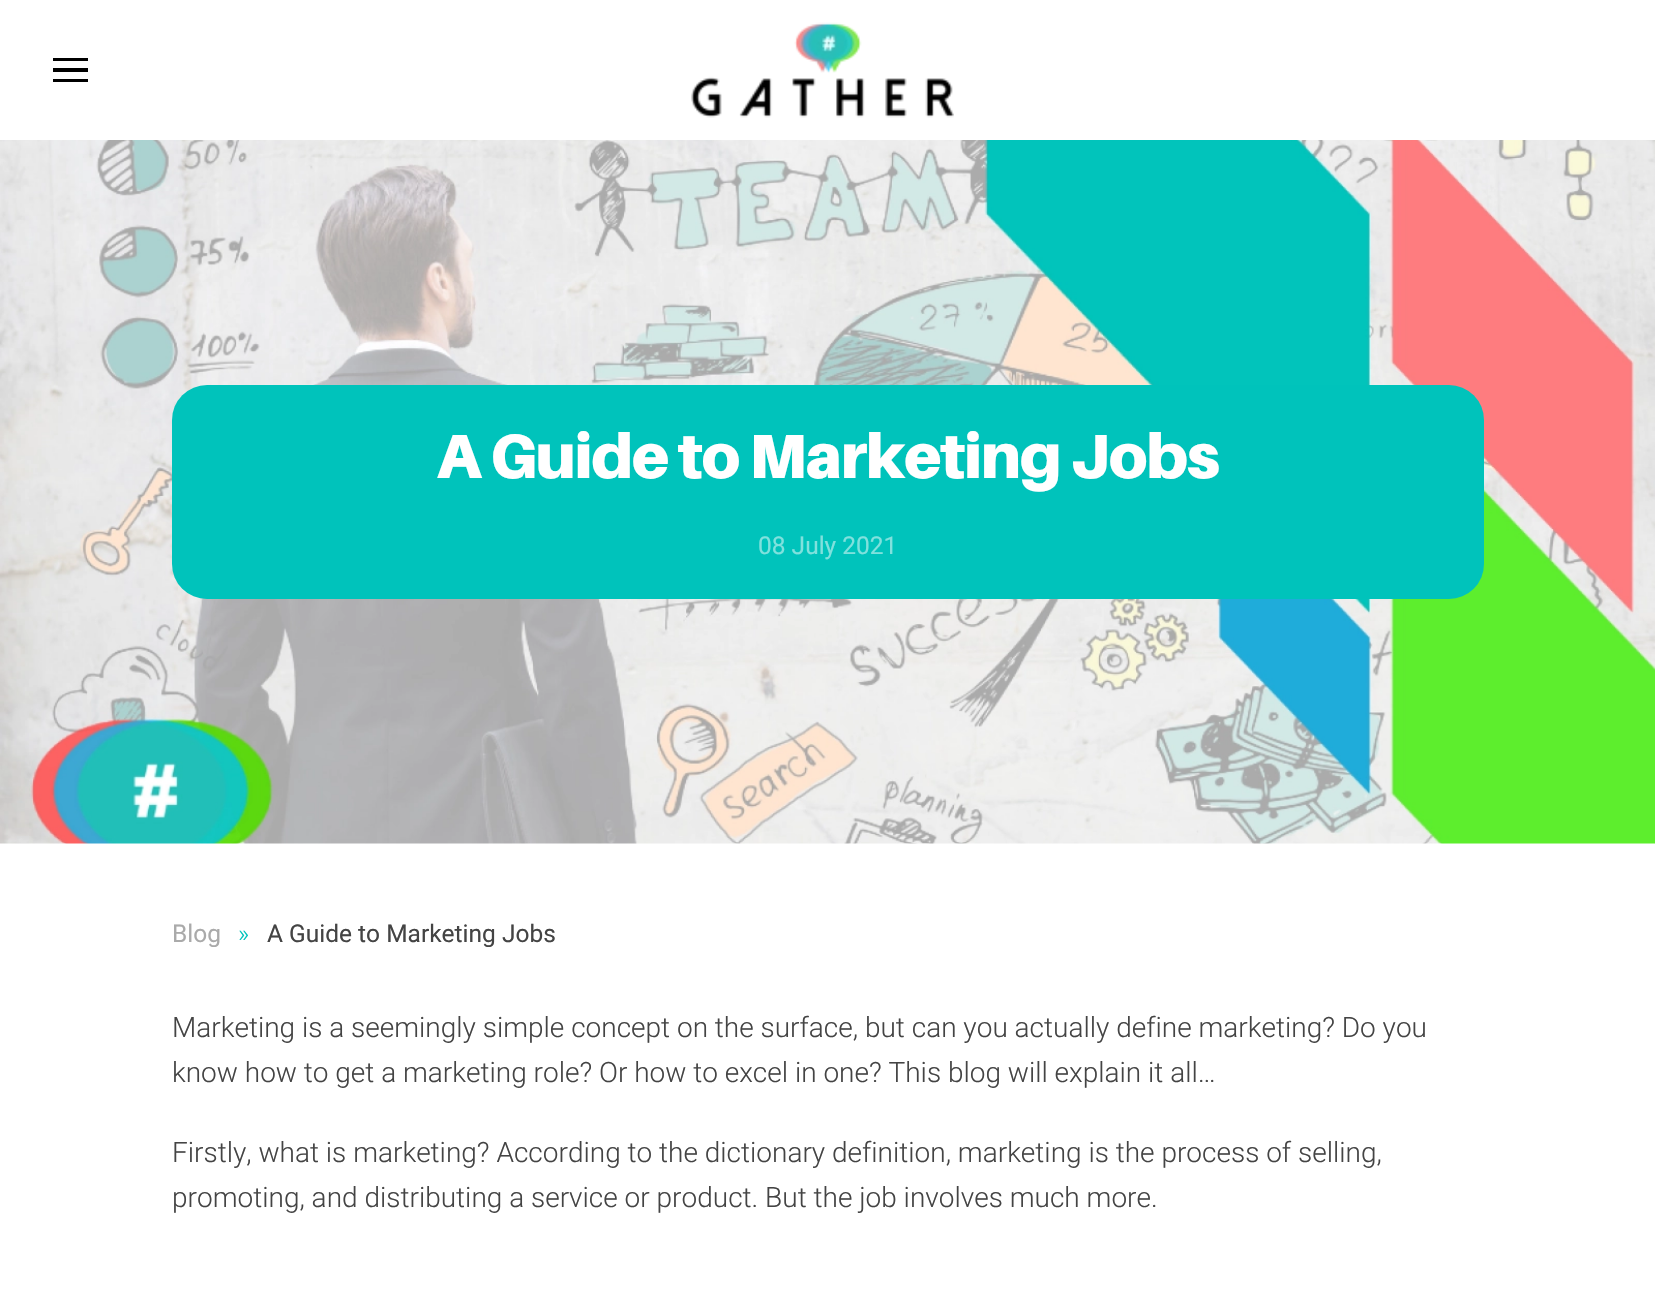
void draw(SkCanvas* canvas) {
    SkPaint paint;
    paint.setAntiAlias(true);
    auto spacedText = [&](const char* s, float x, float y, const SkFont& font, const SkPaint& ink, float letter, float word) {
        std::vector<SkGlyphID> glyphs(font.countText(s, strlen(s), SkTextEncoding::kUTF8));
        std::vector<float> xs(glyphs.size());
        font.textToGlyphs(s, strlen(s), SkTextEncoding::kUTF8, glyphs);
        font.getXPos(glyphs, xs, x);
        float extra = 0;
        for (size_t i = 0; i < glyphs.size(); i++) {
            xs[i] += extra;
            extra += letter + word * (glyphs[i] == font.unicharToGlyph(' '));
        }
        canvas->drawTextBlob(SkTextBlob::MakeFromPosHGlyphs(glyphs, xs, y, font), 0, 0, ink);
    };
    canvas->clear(0xFFFFFFFF);
    paint.setColor(0xFF000000);
    canvas->drawRect(SkRect::MakeXYWH(53, 58, 35, 3), paint);
    canvas->drawRect(SkRect::MakeXYWH(53, 68, 35, 4), paint);
    canvas->drawRect(SkRect::MakeXYWH(53, 79, 35, 3), paint);
    canvas->drawImageRect(SkImages::DeferredFromEncodedData(SkData::MakeFromFileName("img1.png")), SkRect::MakeXYWH(691, 22, 263, 96), SkSamplingOptions());
    canvas->drawImageRect(SkImages::DeferredFromEncodedData(SkData::MakeFromFileName("img2.png")), SkRect::MakeXYWH(0, 140, 1655, 704), SkSamplingOptions());
    paint.setColor(0xFF00C3BB);
    canvas->drawRoundRect(SkRect::MakeXYWH(172, 385, 1312, 214), 35, 35, paint);
    SkFont font1(fontMgr->matchFamilyStyle("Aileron", SkFontStyle(900, SkFontStyle::kNormal_Width, SkFontStyle::kUpright_Slant)), 62.5f);
    font1.setSubpixel(true);
    paint.setColor(0xFFFFFFFF);
    spacedText("A Guide to Marketing Jobs", 437, 478, font1, paint, -1.25f, 0);
    SkFont font2(fontMgr->matchFamilyStyle("Roboto", SkFontStyle::Normal()), 24.5f);
    font2.setSubpixel(true);
    paint.setColor(0xFF80E1DD);
    canvas->drawString("08 July 2021", 758, 554, font2, paint);
    paint.setColor(0xFFAAAAAA);
    canvas->drawString("Blog", 172, 942, font2, paint);
    SkFont font3(fontMgr->matchFamilyStyle("Roboto", SkFontStyle(300, SkFontStyle::kNormal_Width, SkFontStyle::kUpright_Slant)), 24.5f);
    font3.setSubpixel(true);
    paint.setColor(0xFF00C3BB);
    canvas->drawString("»", 238, 942, font3, paint);
    paint.setColor(0xFF444444);
    canvas->drawString("A Guide to Marketing Jobs", 267, 942, font2, paint);
    SkFont font4(fontMgr->matchFamilyStyle("Roboto", SkFontStyle(300, SkFontStyle::kNormal_Width, SkFontStyle::kUpright_Slant)), 28);
    font4.setSubpixel(true);
    canvas->drawString("Marketing is a seemingly simple concept on the surface, but can you actually define marketing? Do you", 172, 1037, font4, paint);
    canvas->drawString("know how to get a marketing role? Or how to excel in one? This blog will explain it all…", 172, 1082, font4, paint);
    canvas->drawString("Firstly, what is marketing? According to the dictionary definition, marketing is the process of selling,", 172, 1162, font4, paint);
    canvas->drawString("promoting, and distributing a service or product. But the job involves much more.", 172, 1207, font4, paint);
}
